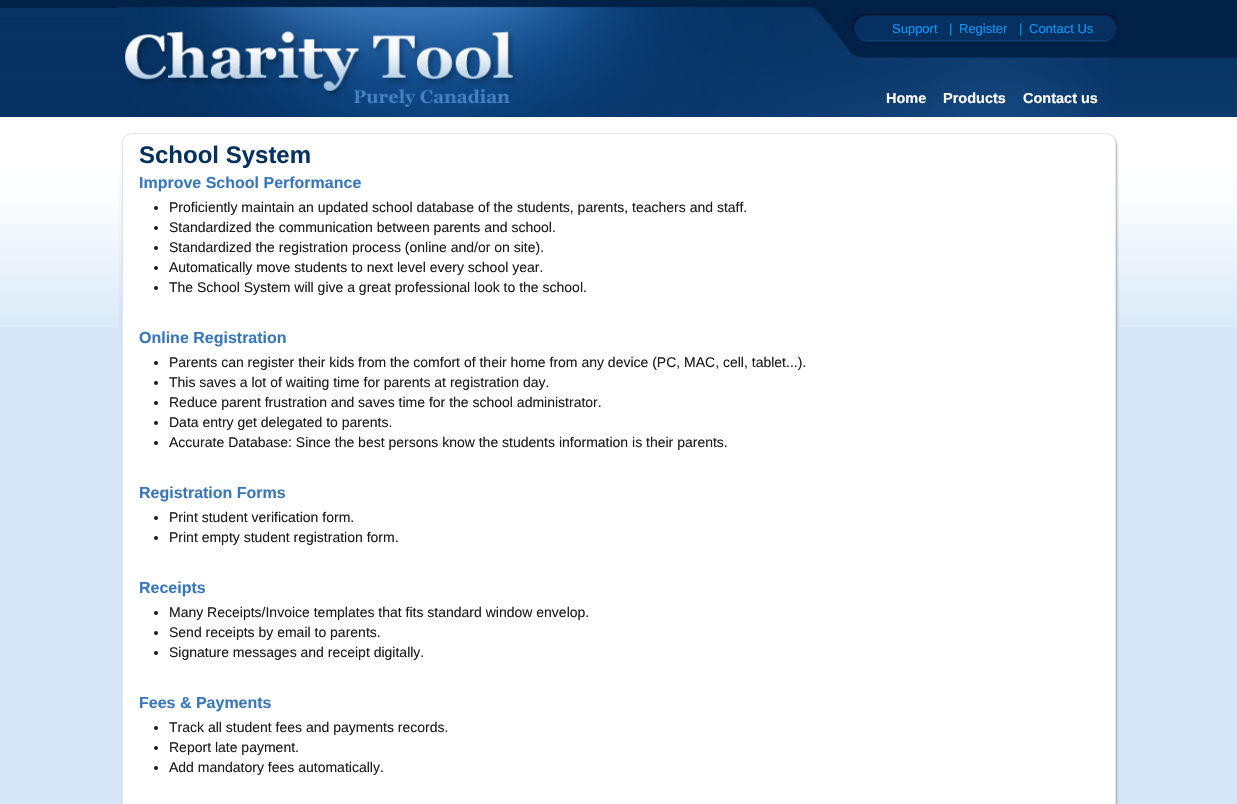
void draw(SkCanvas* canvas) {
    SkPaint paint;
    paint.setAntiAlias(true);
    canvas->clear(0xFFD6E8F7);
    canvas->drawImageRect(SkImages::DeferredFromEncodedData(SkData::MakeFromFileName("img1.png")), SkRect::MakeXYWH(0, 117, 1237, 210), SkSamplingOptions());
    canvas->drawImageRect(SkImages::DeferredFromEncodedData(SkData::MakeFromFileName("img2.png")), SkRect::MakeXYWH(0, 0, 119, 117), SkSamplingOptions());
    canvas->drawImageRect(SkImages::DeferredFromEncodedData(SkData::MakeFromFileName("img3.png")), SkRect::MakeXYWH(119, 0, 1000, 117), SkSamplingOptions());
    SkFont font1(fontMgr->matchFamilyStyle("Liberation Sans", SkFontStyle::Normal()), 13);
    font1.setSubpixel(true);
    paint.setColor(0xFF0099FF);
    canvas->drawString("Support", 892, 33, font1, paint);
    canvas->drawString("|", 949, 33, font1, paint);
    canvas->drawString("Register", 959, 33, font1, paint);
    canvas->drawString("|", 1019, 33, font1, paint);
    canvas->drawString("Contact Us", 1029, 33, font1, paint);
    SkFont font2(fontMgr->matchFamilyStyle("Liberation Sans", SkFontStyle::Bold()), 14.5f);
    font2.setSubpixel(true);
    paint.setColor(0xFFFFFFFF);
    canvas->drawString("Home", 886, 103, font2, paint);
    canvas->drawString("Products", 943, 103, font2, paint);
    canvas->drawString("Contact us", 1023, 103, font2, paint);
    canvas->drawImageRect(SkImages::DeferredFromEncodedData(SkData::MakeFromFileName("img4.png")), SkRect::MakeXYWH(119, 310, 1000, 494), SkSamplingOptions());
    canvas->drawImageRect(SkImages::DeferredFromEncodedData(SkData::MakeFromFileName("img5.png")), SkRect::MakeXYWH(119, 133, 1000, 177), SkSamplingOptions());
    SkFont font3(fontMgr->matchFamilyStyle("Liberation Sans", SkFontStyle::Bold()), 24);
    font3.setSubpixel(true);
    paint.setColor(0xFF06325F);
    canvas->drawString("School System", 139, 163, font3, paint);
    SkFont font4(fontMgr->matchFamilyStyle("Liberation Sans", SkFontStyle::Bold()), 16);
    font4.setSubpixel(true);
    paint.setColor(0xFF3877BC);
    canvas->drawString("Improve School Performance", 139, 188, font4, paint);
    paint.setColor(0xFF1E1B1B);
    canvas->drawCircle(156, 208, 2, paint);
    SkFont font5(fontMgr->matchFamilyStyle("Liberation Sans", SkFontStyle::Normal()), 14);
    font5.setSubpixel(true);
    canvas->drawString("Proficiently maintain an updated school database of the students, parents, teachers and staff.", 169, 212, font5, paint);
    canvas->drawCircle(156, 228, 2, paint);
    canvas->drawString("Standardized the communication between parents and school.", 169, 232, font5, paint);
    canvas->drawCircle(156, 248, 2, paint);
    canvas->drawString("Standardized the registration process (online and/or on site).", 169, 252, font5, paint);
    canvas->drawCircle(156, 268, 2, paint);
    canvas->drawString("Automatically move students to next level every school year.", 169, 272, font5, paint);
    canvas->drawCircle(156, 288, 2, paint);
    canvas->drawString("The School System will give a great professional look to the school.", 169, 292, font5, paint);
    paint.setColor(0xFF3877BC);
    canvas->drawString("Online Registration", 139, 343, font4, paint);
    paint.setColor(0xFF1E1B1B);
    canvas->drawCircle(156, 363, 2, paint);
    canvas->drawString("Parents can register their kids from the comfort of their home from any device (PC, MAC, cell, tablet...).", 169, 367, font5, paint);
    canvas->drawCircle(156, 383, 2, paint);
    canvas->drawString("This saves a lot of waiting time for parents at registration day.", 169, 387, font5, paint);
    canvas->drawCircle(156, 403, 2, paint);
    canvas->drawString("Reduce parent frustration and saves time for the school administrator.", 169, 407, font5, paint);
    canvas->drawCircle(156, 423, 2, paint);
    canvas->drawString("Data entry get delegated to parents.", 169, 427, font5, paint);
    canvas->drawCircle(156, 443, 2, paint);
    canvas->drawString("Accurate Database: Since the best persons know the students information is their parents.", 169, 447, font5, paint);
    paint.setColor(0xFF3877BC);
    canvas->drawString("Registration Forms", 139, 498, font4, paint);
    paint.setColor(0xFF1E1B1B);
    canvas->drawCircle(156, 518, 2, paint);
    canvas->drawString("Print student verification form.", 169, 522, font5, paint);
    canvas->drawCircle(156, 538, 2, paint);
    canvas->drawString("Print empty student registration form.", 169, 542, font5, paint);
    paint.setColor(0xFF3877BC);
    canvas->drawString("Receipts", 139, 593, font4, paint);
    paint.setColor(0xFF1E1B1B);
    canvas->drawCircle(156, 613, 2, paint);
    canvas->drawString("Many Receipts/Invoice templates that fits standard window envelop.", 169, 617, font5, paint);
    canvas->drawCircle(156, 633, 2, paint);
    canvas->drawString("Send receipts by email to parents.", 169, 637, font5, paint);
    canvas->drawCircle(156, 653, 2, paint);
    canvas->drawString("Signature messages and receipt digitally.", 169, 657, font5, paint);
    paint.setColor(0xFF3877BC);
    canvas->drawString("Fees & Payments", 139, 708, font4, paint);
    paint.setColor(0xFF1E1B1B);
    canvas->drawCircle(156, 728, 2, paint);
    canvas->drawString("Track all student fees and payments records.", 169, 732, font5, paint);
    canvas->drawCircle(156, 748, 2, paint);
    canvas->drawString("Report late payment.", 169, 752, font5, paint);
    canvas->drawCircle(156, 768, 2, paint);
    canvas->drawString("Add mandatory fees automatically.", 169, 772, font5, paint);
    canvas->drawImageRect(SkImages::DeferredFromEncodedData(SkData::MakeFromFileName("img6.png")), SkRect::MakeXYWH(1119, 0, 118, 117), SkSamplingOptions());
}
